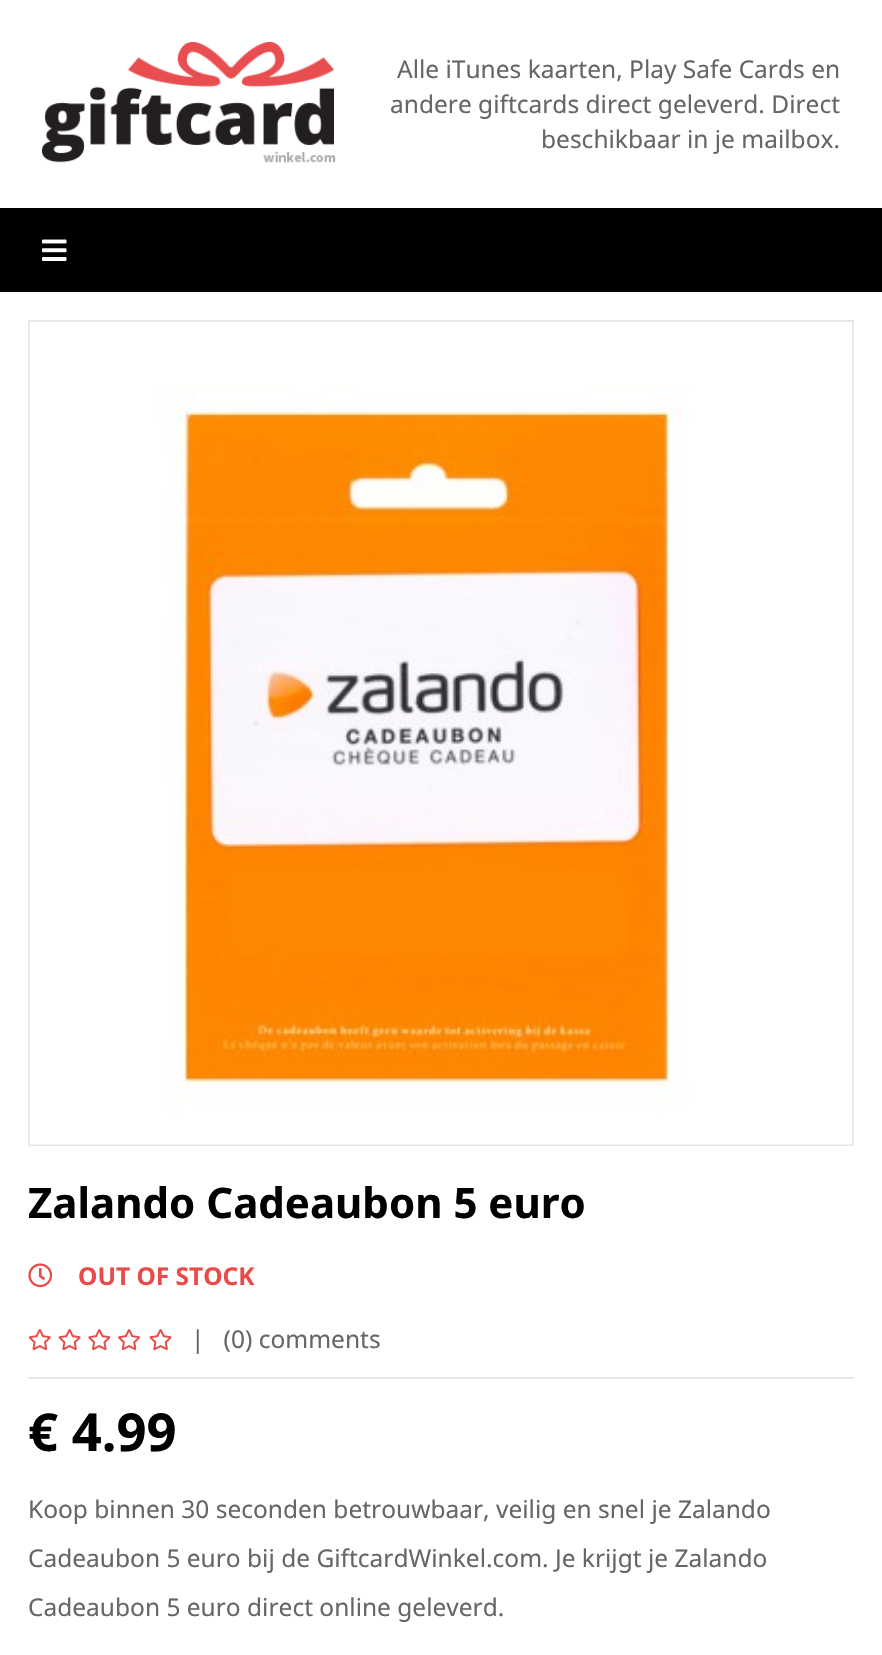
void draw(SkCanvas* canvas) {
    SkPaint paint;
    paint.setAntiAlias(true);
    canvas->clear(0xFFFFFFFF);
    canvas->drawImageRect(SkImages::DeferredFromEncodedData(SkData::MakeFromFileName("img1.png")), SkRect::MakeXYWH(42, 42, 294, 121), SkSamplingOptions());
    SkFont font1(fontMgr->matchFamilyStyle("Noto Sans", SkFontStyle::Normal()), 24.5f);
    font1.setSubpixel(true);
    paint.setColor(0xFF666666);
    canvas->drawString("Alle iTunes kaarten, Play Safe Cards en", 397, 78, font1, paint);
    canvas->drawString("andere giftcards direct geleverd. Direct", 390, 113, font1, paint);
    canvas->drawString("beschikbaar in je mailbox.", 541, 148, font1, paint);
    paint.setColor(0xFF000000);
    canvas->drawRect(SkRect::MakeXYWH(0, 208, 882, 84), paint);
    canvas->drawImageRect(SkImages::DeferredFromEncodedData(SkData::MakeFromFileName("img2.png")), SkRect::MakeXYWH(42, 239, 25, 22), SkSamplingOptions());
    paint.setStyle(SkPaint::kStroke_Style);
    paint.setStrokeWidth(2);
    paint.setColor(0xFFE5E7EB);
    canvas->drawRect(SkRect::MakeXYWH(29, 321, 824, 824), paint);
    canvas->drawImageRect(SkImages::DeferredFromEncodedData(SkData::MakeFromFileName("img3.png")), SkRect::MakeXYWH(29, 322, 824, 823), SkSamplingOptions());
    SkFont font2(fontMgr->matchFamilyStyle("Noto Sans", SkFontStyle::Bold()), 42);
    font2.setSubpixel(true);
    paint.setStyle(SkPaint::kFill_Style);
    paint.setColor(0xFF000000);
    canvas->drawString("Zalando Cadeaubon 5 euro", 28, 1218, font2, paint);
    canvas->drawImageRect(SkImages::DeferredFromEncodedData(SkData::MakeFromFileName("img4.png")), SkRect::MakeXYWH(28, 1263, 25, 25), SkSamplingOptions());
    SkFont font3(fontMgr->matchFamilyStyle("Noto Sans", SkFontStyle::Bold()), 24.5f);
    font3.setSubpixel(true);
    paint.setColor(0xFFE94B4B);
    canvas->drawString("OUT OF STOCK", 78, 1285, font3, paint);
    canvas->drawImageRect(SkImages::DeferredFromEncodedData(SkData::MakeFromFileName("img5.png")), SkRect::MakeXYWH(28, 1329, 23, 22), SkSamplingOptions());
    canvas->drawImageRect(SkImages::DeferredFromEncodedData(SkData::MakeFromFileName("img6.png")), SkRect::MakeXYWH(58, 1329, 23, 22), SkSamplingOptions());
    canvas->drawImageRect(SkImages::DeferredFromEncodedData(SkData::MakeFromFileName("img7.png")), SkRect::MakeXYWH(88, 1329, 23, 22), SkSamplingOptions());
    canvas->drawImageRect(SkImages::DeferredFromEncodedData(SkData::MakeFromFileName("img8.png")), SkRect::MakeXYWH(118, 1329, 22, 22), SkSamplingOptions());
    canvas->drawImageRect(SkImages::DeferredFromEncodedData(SkData::MakeFromFileName("img6.png")), SkRect::MakeXYWH(149, 1329, 23, 22), SkSamplingOptions());
    paint.setColor(0xFF666666);
    canvas->drawString("|   (0) comments", 191, 1348, font1, paint);
    paint.setColor(0xFFE5E7EB);
    canvas->drawRect(SkRect::MakeXYWH(28, 1377, 826, 2), paint);
    SkFont font4(fontMgr->matchFamilyStyle("Noto Sans", SkFontStyle::Bold()), 52.5f);
    font4.setSubpixel(true);
    paint.setColor(0xFF000000);
    canvas->drawString("€ 4.99", 28, 1451, font4, paint);
    paint.setColor(0xFF666666);
    canvas->drawString("Koop binnen 30 seconden betrouwbaar, veilig en snel je Zalando", 28, 1518, font1, paint);
    canvas->drawString("Cadeaubon 5 euro bij de GiftcardWinkel.com. Je krijgt je Zalando", 28, 1567, font1, paint);
    canvas->drawString("Cadeaubon 5 euro direct online geleverd.", 28, 1616, font1, paint);
}
